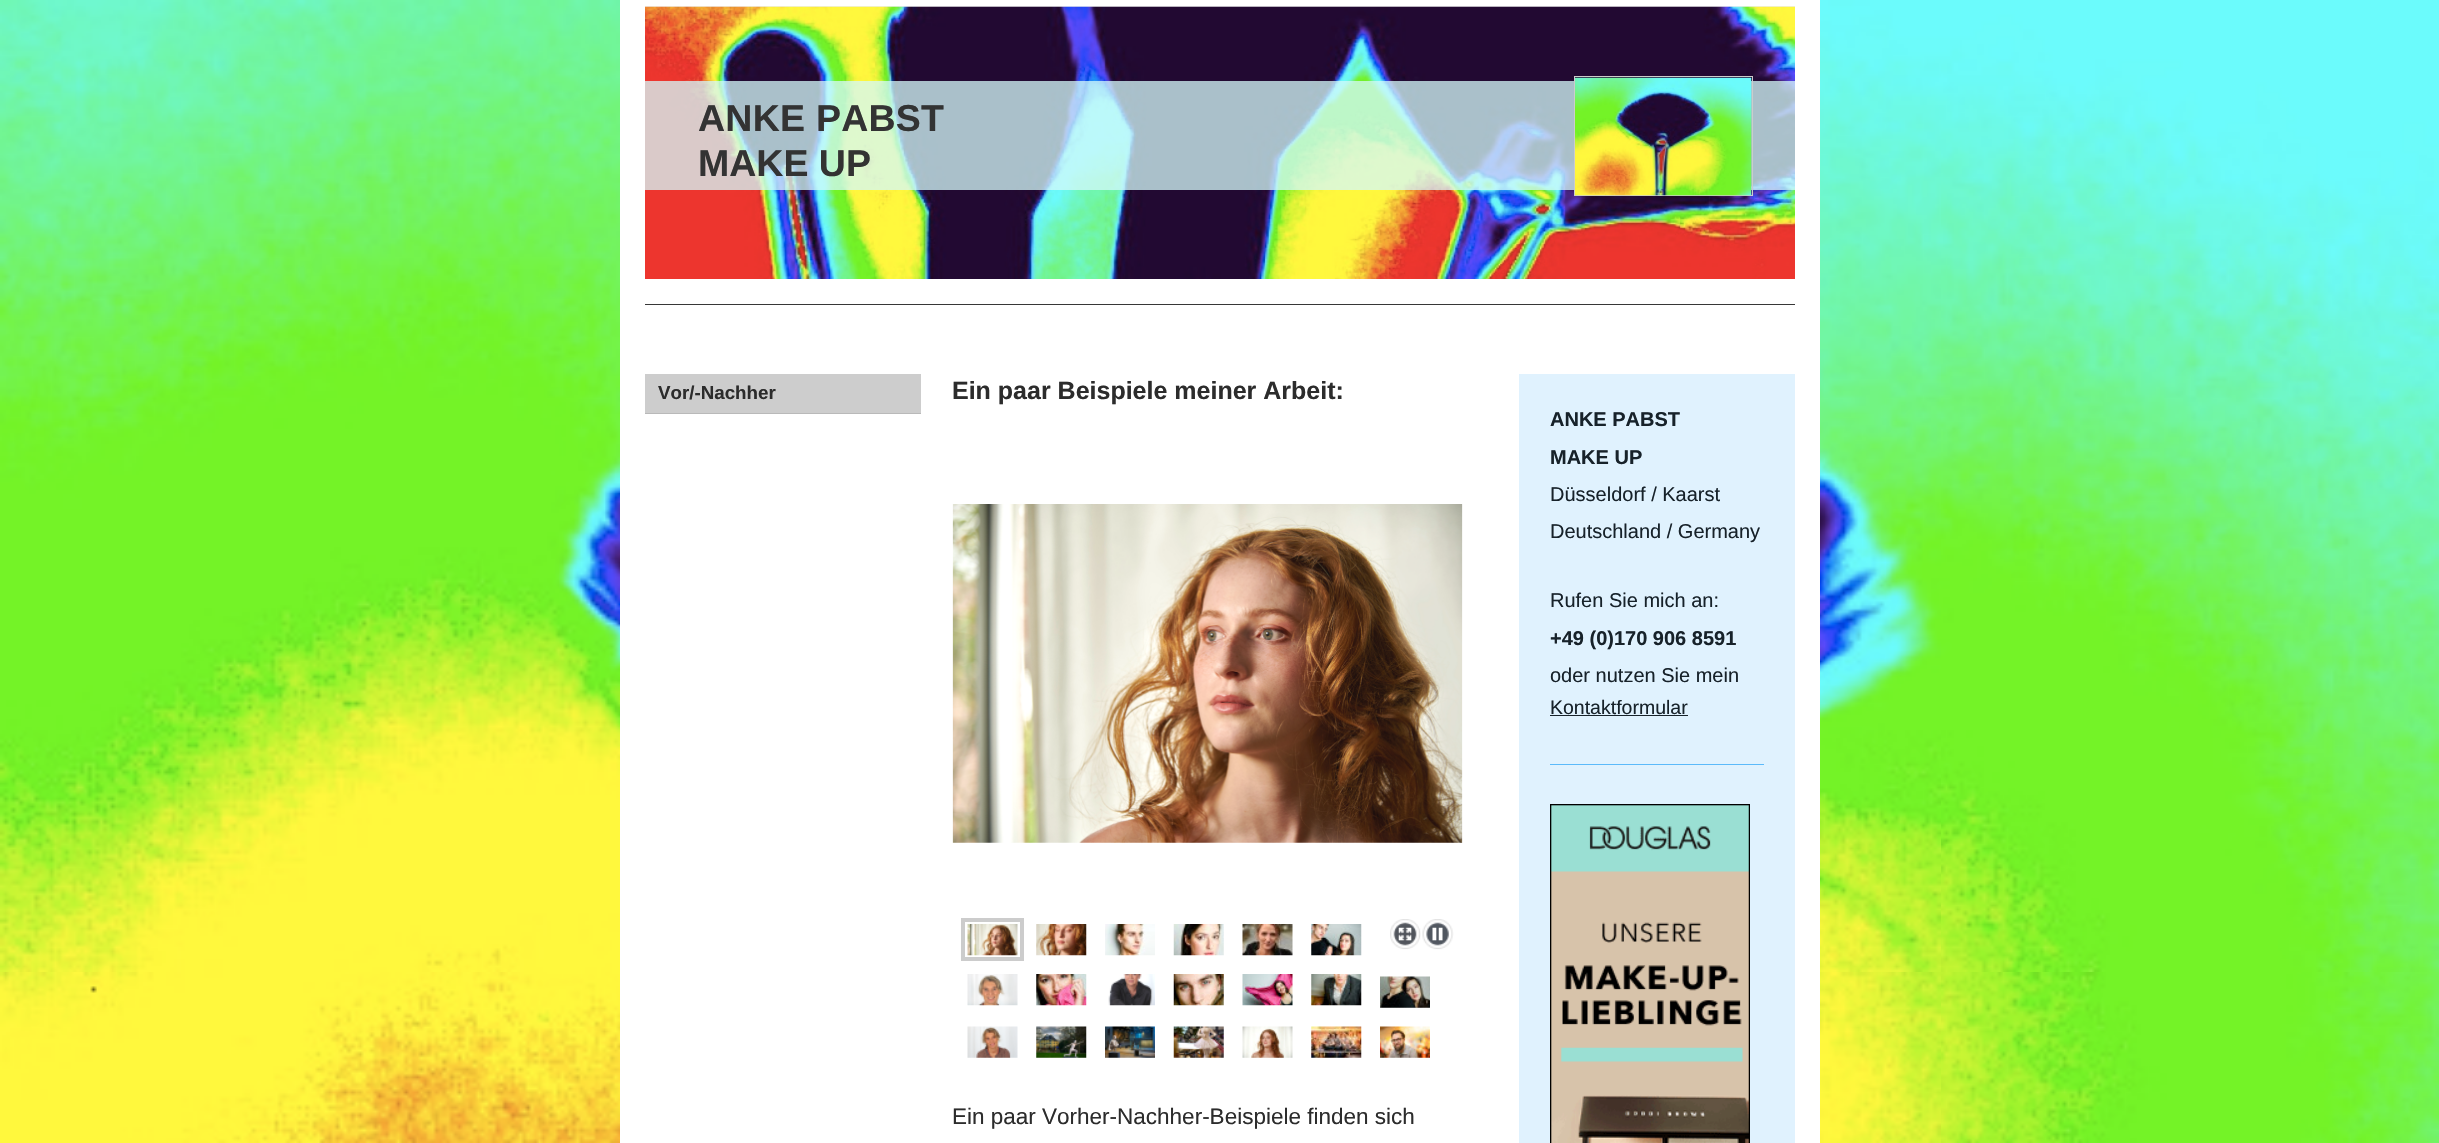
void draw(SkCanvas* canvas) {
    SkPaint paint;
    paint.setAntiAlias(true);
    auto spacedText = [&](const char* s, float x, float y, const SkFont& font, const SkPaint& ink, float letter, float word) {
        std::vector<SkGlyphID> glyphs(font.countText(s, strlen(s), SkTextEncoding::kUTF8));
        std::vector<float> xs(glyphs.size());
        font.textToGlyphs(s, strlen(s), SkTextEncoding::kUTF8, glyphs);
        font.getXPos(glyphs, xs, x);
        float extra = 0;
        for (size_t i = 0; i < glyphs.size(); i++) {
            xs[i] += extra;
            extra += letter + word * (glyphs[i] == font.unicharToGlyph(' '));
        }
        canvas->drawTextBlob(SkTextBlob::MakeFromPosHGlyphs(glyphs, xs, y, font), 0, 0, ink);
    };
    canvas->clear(0xFFFFFFFF);
    canvas->drawImageRect(SkImages::DeferredFromEncodedData(SkData::MakeFromFileName("img1.png")), SkRect::MakeXYWH(0, 0, 2439, 1143), SkSamplingOptions());
    paint.setColor(0xFFFFFFFF);
    canvas->drawRect(SkRect::MakeXYWH(620, 0, 1200, 1143), paint);
    paint.setColor(0xFFEEEEEE);
    canvas->drawRect(SkRect::MakeXYWH(645, 6, 1150, 1), paint);
    canvas->drawImageRect(SkImages::DeferredFromEncodedData(SkData::MakeFromFileName("img2.png")), SkRect::MakeXYWH(645, 6, 1150, 273), SkSamplingOptions());
    paint.setColor(0xC2D3F9FA);
    canvas->drawRect(SkRect::MakeXYWH(645, 81, 1150, 109), paint);
    paint.setStyle(SkPaint::kStroke_Style);
    paint.setStrokeWidth(1);
    paint.setColor(0xFFCCCCCC);
    canvas->drawRect(SkRect::MakeXYWH(1574.5f, 76.5f, 178, 119), paint);
    canvas->drawImageRect(SkImages::DeferredFromEncodedData(SkData::MakeFromFileName("img3.png")), SkRect::MakeXYWH(1575, 77, 177, 119), SkSamplingOptions());
    SkFont font1(fontMgr->matchFamilyStyle("Liberation Sans", SkFontStyle::Bold()), 37.5f);
    font1.setSubpixel(true);
    paint.setStyle(SkPaint::kFill_Style);
    paint.setColor(0xFF333333);
    spacedText("ANKE PABST", 698, 131, font1, paint, 0.25f, 0);
    canvas->drawString("MAKE UP", 698, 176, font1, paint);
    paint.setColor(0xFF373737);
    canvas->drawRect(SkRect::MakeXYWH(645, 304, 1150, 1), paint);
    paint.setColor(0xFFCDCDCD);
    canvas->drawRect(SkRect::MakeXYWH(645, 374, 276, 39), paint);
    paint.setColor(0xFFB9B9B9);
    canvas->drawRect(SkRect::MakeXYWH(645, 413, 276, 1), paint);
    SkFont font2(fontMgr->matchFamilyStyle("Liberation Sans", SkFontStyle::Bold()), 18.75f);
    font2.setSubpixel(true);
    paint.setColor(0xFF2C2C2C);
    canvas->drawString("Vor/-Nachher", 658, 399, font2, paint);
    SkFont font3(fontMgr->matchFamilyStyle("Liberation Sans", SkFontStyle::Bold()), 25);
    font3.setSubpixel(true);
    canvas->drawString("Ein paar Beispiele meiner Arbeit:", 952, 399, font3, paint);
    canvas->drawImageRect(SkImages::DeferredFromEncodedData(SkData::MakeFromFileName("img4.png")), SkRect::MakeXYWH(952, 504, 511, 339), SkSamplingOptions());
    paint.setStyle(SkPaint::kStroke_Style);
    paint.setStrokeWidth(4);
    paint.setColor(0xFFCCCCCC);
    canvas->drawRect(SkRect::MakeXYWH(963, 920, 59, 39), paint);
    canvas->drawImageRect(SkImages::DeferredFromEncodedData(SkData::MakeFromFileName("img5.png")), SkRect::MakeXYWH(967, 924, 51, 32), SkSamplingOptions());
    canvas->drawImageRect(SkImages::DeferredFromEncodedData(SkData::MakeFromFileName("img6.png")), SkRect::MakeXYWH(1036, 924, 51, 32), SkSamplingOptions());
    canvas->drawImageRect(SkImages::DeferredFromEncodedData(SkData::MakeFromFileName("img7.png")), SkRect::MakeXYWH(1105, 924, 50, 32), SkSamplingOptions());
    canvas->drawImageRect(SkImages::DeferredFromEncodedData(SkData::MakeFromFileName("img8.png")), SkRect::MakeXYWH(1173, 924, 51, 32), SkSamplingOptions());
    canvas->drawImageRect(SkImages::DeferredFromEncodedData(SkData::MakeFromFileName("img9.png")), SkRect::MakeXYWH(1242, 924, 51, 32), SkSamplingOptions());
    canvas->drawImageRect(SkImages::DeferredFromEncodedData(SkData::MakeFromFileName("img10.png")), SkRect::MakeXYWH(1311, 924, 51, 32), SkSamplingOptions());
    canvas->drawImageRect(SkImages::DeferredFromEncodedData(SkData::MakeFromFileName("img11.png")), SkRect::MakeXYWH(1390, 919, 31, 31), SkSamplingOptions());
    canvas->drawImageRect(SkImages::DeferredFromEncodedData(SkData::MakeFromFileName("img12.png")), SkRect::MakeXYWH(1422, 919, 32, 31), SkSamplingOptions());
    canvas->drawImageRect(SkImages::DeferredFromEncodedData(SkData::MakeFromFileName("img13.png")), SkRect::MakeXYWH(967, 974, 51, 32), SkSamplingOptions());
    canvas->drawImageRect(SkImages::DeferredFromEncodedData(SkData::MakeFromFileName("img14.png")), SkRect::MakeXYWH(1036, 974, 51, 32), SkSamplingOptions());
    canvas->drawImageRect(SkImages::DeferredFromEncodedData(SkData::MakeFromFileName("img15.png")), SkRect::MakeXYWH(1108, 974, 47, 32), SkSamplingOptions());
    canvas->drawImageRect(SkImages::DeferredFromEncodedData(SkData::MakeFromFileName("img16.png")), SkRect::MakeXYWH(1173, 974, 51, 32), SkSamplingOptions());
    canvas->drawImageRect(SkImages::DeferredFromEncodedData(SkData::MakeFromFileName("img17.png")), SkRect::MakeXYWH(1242, 974, 51, 32), SkSamplingOptions());
    canvas->drawImageRect(SkImages::DeferredFromEncodedData(SkData::MakeFromFileName("img18.png")), SkRect::MakeXYWH(1311, 974, 51, 32), SkSamplingOptions());
    canvas->drawImageRect(SkImages::DeferredFromEncodedData(SkData::MakeFromFileName("img19.png")), SkRect::MakeXYWH(1380, 976, 50, 32), SkSamplingOptions());
    canvas->drawImageRect(SkImages::DeferredFromEncodedData(SkData::MakeFromFileName("img20.png")), SkRect::MakeXYWH(967, 1026, 51, 32), SkSamplingOptions());
    canvas->drawImageRect(SkImages::DeferredFromEncodedData(SkData::MakeFromFileName("img21.png")), SkRect::MakeXYWH(1036, 1026, 51, 32), SkSamplingOptions());
    canvas->drawImageRect(SkImages::DeferredFromEncodedData(SkData::MakeFromFileName("img22.png")), SkRect::MakeXYWH(1105, 1026, 50, 32), SkSamplingOptions());
    canvas->drawImageRect(SkImages::DeferredFromEncodedData(SkData::MakeFromFileName("img23.png")), SkRect::MakeXYWH(1173, 1026, 51, 32), SkSamplingOptions());
    canvas->drawImageRect(SkImages::DeferredFromEncodedData(SkData::MakeFromFileName("img24.png")), SkRect::MakeXYWH(1242, 1026, 51, 32), SkSamplingOptions());
    canvas->drawImageRect(SkImages::DeferredFromEncodedData(SkData::MakeFromFileName("img25.png")), SkRect::MakeXYWH(1311, 1026, 51, 32), SkSamplingOptions());
    canvas->drawImageRect(SkImages::DeferredFromEncodedData(SkData::MakeFromFileName("img26.png")), SkRect::MakeXYWH(1380, 1026, 50, 32), SkSamplingOptions());
    SkFont font4(fontMgr->matchFamilyStyle("Liberation Sans", SkFontStyle::Normal()), 22.5f);
    font4.setSubpixel(true);
    paint.setStyle(SkPaint::kFill_Style);
    paint.setColor(0xFF2C2C2C);
    canvas->drawString("Ein paar Vorher-Nachher-Beispiele finden sich", 952, 1124, font4, paint);
    paint.setColor(0xFFE0F2FE);
    canvas->drawRect(SkRect::MakeXYWH(1519, 374, 276, 769), paint);
    SkFont font5(fontMgr->matchFamilyStyle("Liberation Sans", SkFontStyle::Bold()), 20);
    font5.setSubpixel(true);
    paint.setColor(0xFF17222A);
    canvas->drawString("ANKE PABST", 1550, 426, font5, paint);
    canvas->drawString("MAKE UP", 1550, 464, font5, paint);
    SkFont font6(fontMgr->matchFamilyStyle("Liberation Sans", SkFontStyle::Normal()), 20);
    font6.setSubpixel(true);
    canvas->drawString("Düsseldorf / Kaarst", 1550, 501, font6, paint);
    canvas->drawString("Deutschland / Germany", 1550, 538, font6, paint);
    canvas->drawString("Rufen Sie mich an:", 1550, 607, font6, paint);
    canvas->drawString("+49 (0)170 906 8591", 1550, 645, font5, paint);
    canvas->drawString("oder nutzen Sie mein", 1550, 682, font6, paint);
    SkFont font7(fontMgr->matchFamilyStyle("Liberation Sans", SkFontStyle::Normal()), 19.5f);
    font7.setSubpixel(true);
    canvas->drawString("Kontaktformular", 1550, 714, font7, paint);
    canvas->drawRect(SkRect::MakeXYWH(1550, 715, 138, 1), paint);
    paint.setColor(0xFF5BBAFA);
    canvas->drawRect(SkRect::MakeXYWH(1550, 764, 214, 1), paint);
    canvas->drawImageRect(SkImages::DeferredFromEncodedData(SkData::MakeFromFileName("img27.png")), SkRect::MakeXYWH(1550, 804, 200, 339), SkSamplingOptions());
}
